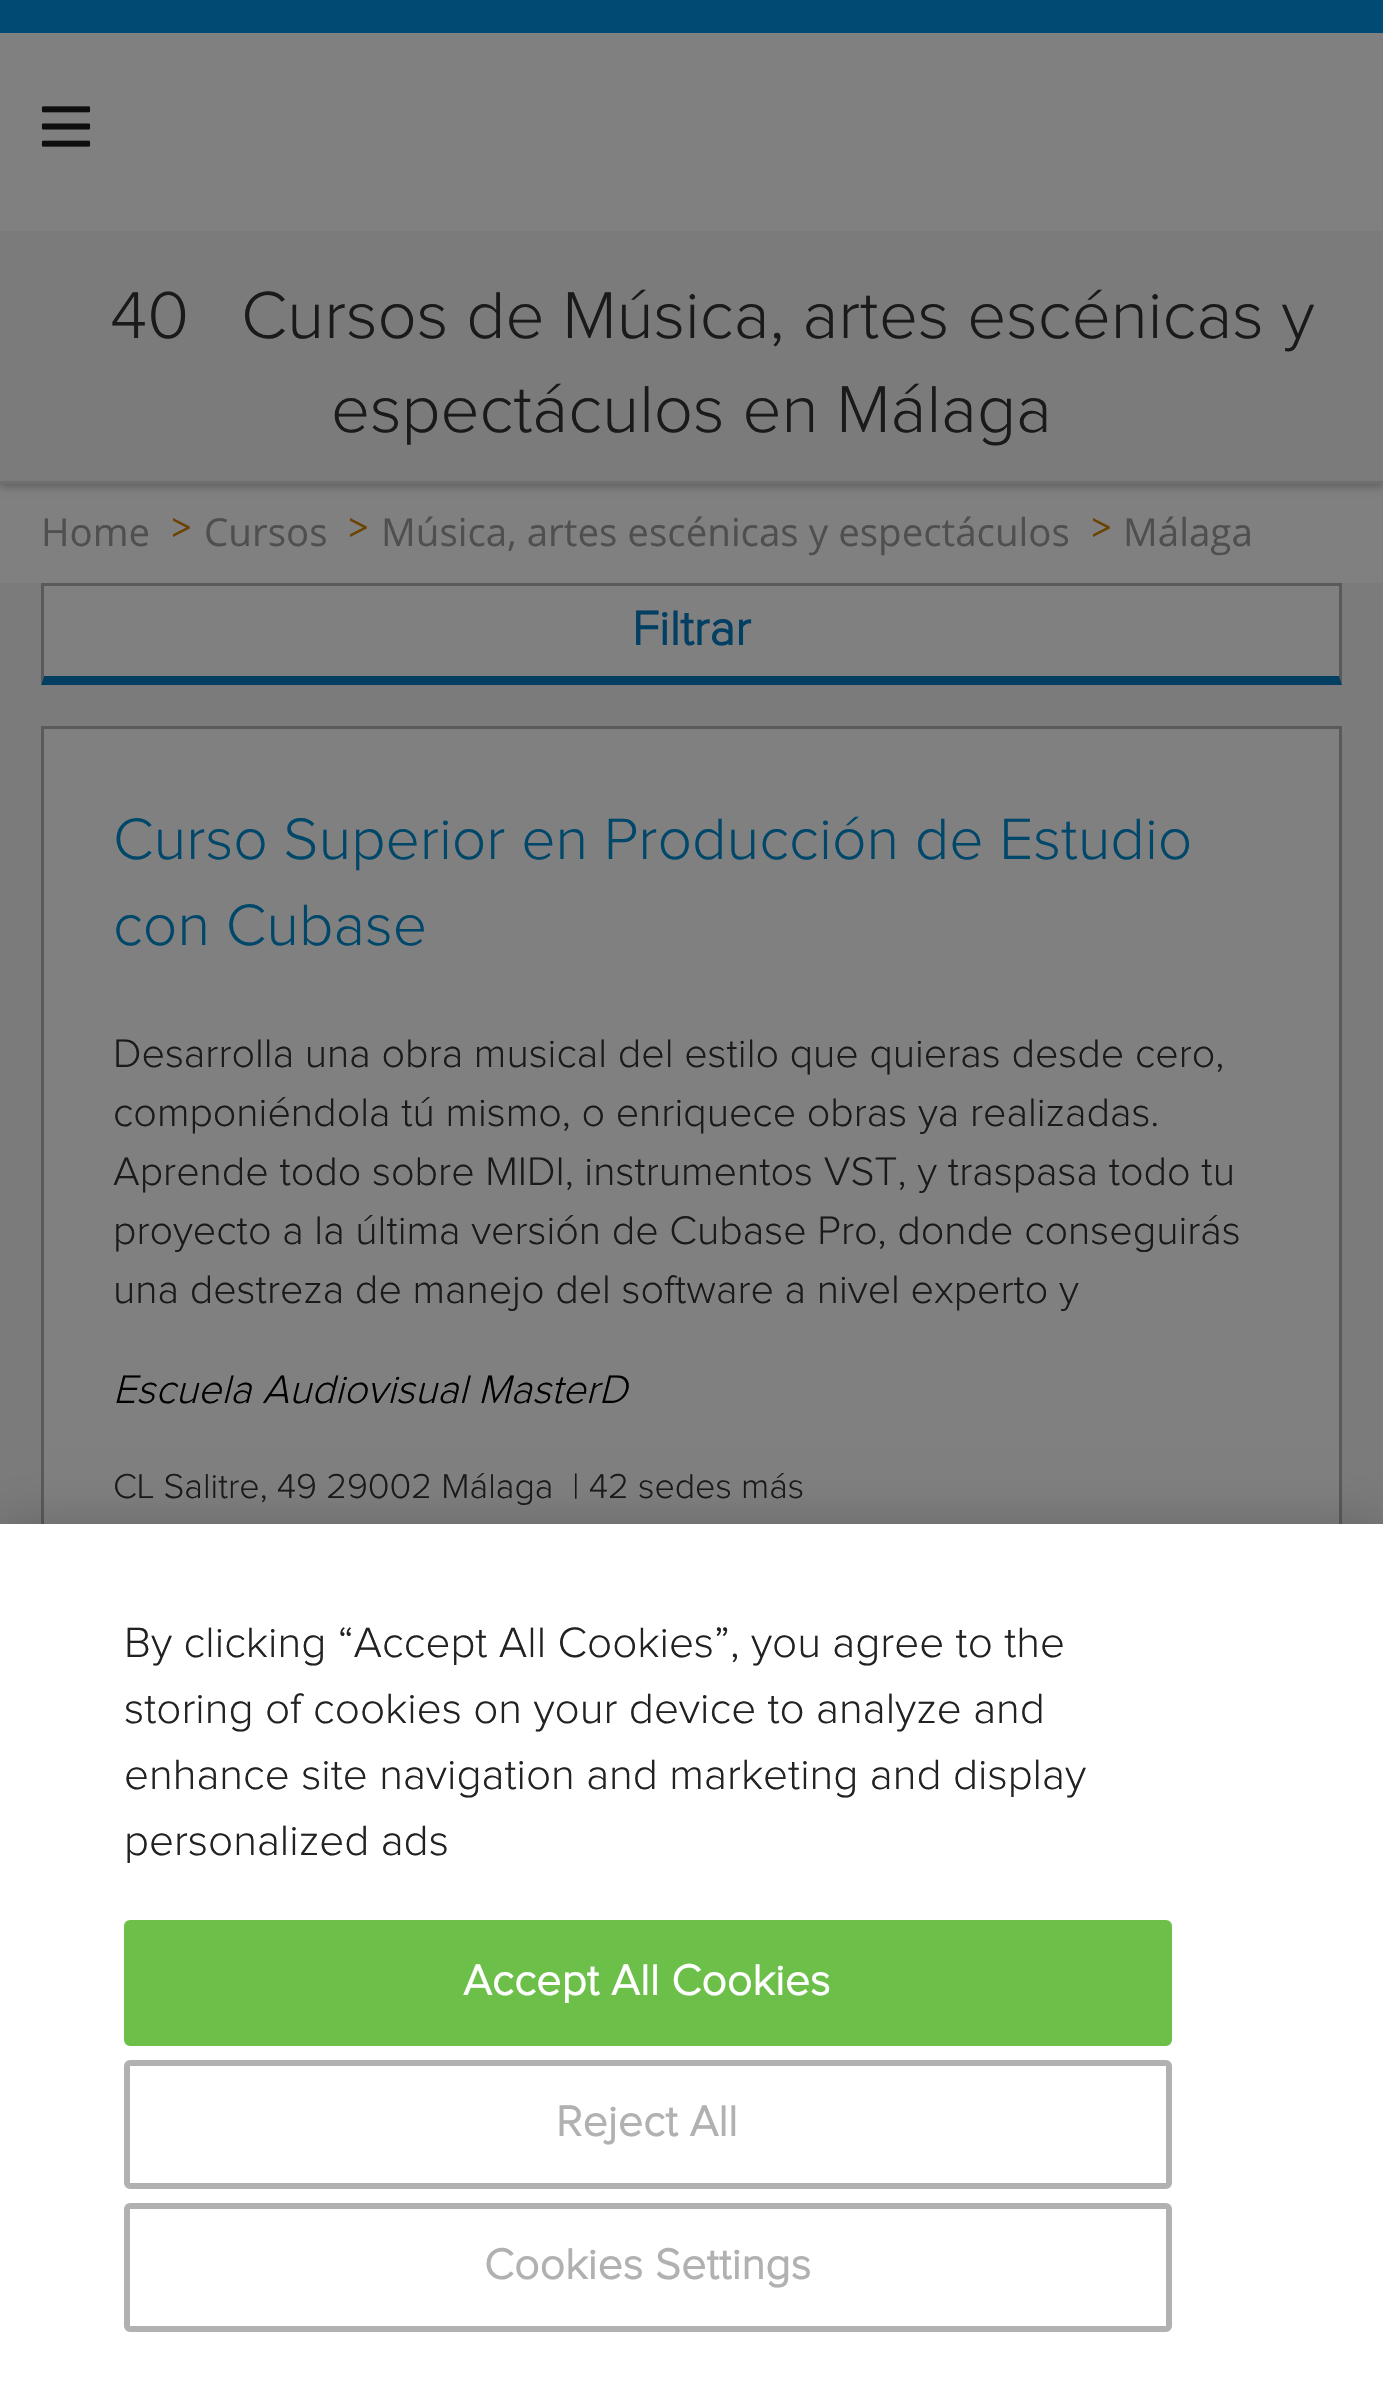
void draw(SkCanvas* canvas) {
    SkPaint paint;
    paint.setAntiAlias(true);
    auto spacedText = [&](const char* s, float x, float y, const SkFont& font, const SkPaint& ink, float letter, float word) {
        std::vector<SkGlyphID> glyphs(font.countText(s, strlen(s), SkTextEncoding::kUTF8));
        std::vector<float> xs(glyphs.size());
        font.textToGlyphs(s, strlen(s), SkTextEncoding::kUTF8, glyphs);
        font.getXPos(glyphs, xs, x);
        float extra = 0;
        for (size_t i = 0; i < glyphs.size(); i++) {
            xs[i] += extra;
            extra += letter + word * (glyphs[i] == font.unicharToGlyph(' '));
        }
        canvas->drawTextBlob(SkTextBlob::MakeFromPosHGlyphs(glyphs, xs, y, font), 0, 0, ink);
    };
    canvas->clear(0xFF7B7B7B);
    paint.setColor(0xFF808080);
    canvas->drawRect(SkRect::MakeXYWH(0, 484, 1383, 99), paint);
    paint.setColor(0x40000000);
    paint.setMaskFilter(SkMaskFilter::MakeBlur(kNormal_SkBlurStyle, 4));
    canvas->drawRect(SkRect::MakeXYWH(0, 234, 1383, 253), paint);
    paint.setMaskFilter(nullptr);
    paint.setColor(0xFF808080);
    canvas->drawRect(SkRect::MakeXYWH(0, 33, 1383, 198), paint);
    paint.setColor(0xFF004B73);
    canvas->drawRect(SkRect::MakeXYWH(0, 0, 1383, 33), paint);
    canvas->drawImageRect(SkImages::DeferredFromEncodedData(SkData::MakeFromFileName("img1.png")), SkRect::MakeXYWH(41, 106, 50, 41), SkSamplingOptions());
    paint.setColor(0xFF7B7B7B);
    canvas->drawRect(SkRect::MakeXYWH(0, 231, 1383, 250), paint);
    paint.setColor(0xFF6F6F6F);
    canvas->drawRect(SkRect::MakeXYWH(0, 481, 1383, 3), paint);
    SkFont font1(fontMgr->matchFamilyStyle("Proxima Nova", SkFontStyle(300, SkFontStyle::kNormal_Width, SkFontStyle::kUpright_Slant)), 68.75f);
    font1.setSubpixel(true);
    paint.setColor(0xFF1A1A1A);
    canvas->drawString("40", 110, 338, font1, paint);
    canvas->drawString("Cursos de Música, artes escénicas y", 241, 338, font1, paint);
    canvas->drawString("espectáculos en Málaga", 331, 432, font1, paint);
    SkFont font2(fontMgr->matchFamilyStyle("Open Sans", SkFontStyle::Normal()), 38.5f);
    font2.setSubpixel(true);
    paint.setColor(0xFF4F4F4F);
    canvas->drawString("Home", 41, 546, font2, paint);
    SkFont font3(fontMgr->matchFamilyStyle("Proxima Nova", SkFontStyle::Bold()), 35.75f);
    font3.setSubpixel(true);
    paint.setColor(0xFF6B4303);
    canvas->drawString(">", 172, 540, font3, paint);
    paint.setColor(0xFF4F4F4F);
    canvas->drawString("Cursos", 204, 546, font2, paint);
    paint.setColor(0xFF6B4303);
    canvas->drawString(">", 349, 540, font3, paint);
    paint.setColor(0xFF4F4F4F);
    canvas->drawString("Música, artes escénicas y espectáculos", 381, 546, font2, paint);
    paint.setColor(0xFF6B4303);
    canvas->drawString(">", 1092, 540, font3, paint);
    paint.setColor(0xFF4F4F4F);
    canvas->drawString("Málaga", 1123, 546, font2, paint);
    paint.setColor(0xFF808080);
    canvas->drawRect(SkRect::MakeXYWH(44, 586, 1295, 90), paint);
    paint.setColor(0xFF5A5A5A);
    canvas->drawRect(SkRect::MakeXYWH(41, 583, 1301, 3), paint);
    canvas->drawPath(SkPathBuilder().moveTo(1342, 583).lineTo(1342, 685).lineTo(1339, 676).lineTo(1339, 586).close().detach(), paint);
    paint.setColor(0xFF033E63);
    canvas->drawPath(SkPathBuilder().moveTo(1342, 685).lineTo(41, 685).lineTo(44, 676).lineTo(1339, 676).close().detach(), paint);
    paint.setColor(0xFF5A5A5A);
    canvas->drawPath(SkPathBuilder().moveTo(41, 685).lineTo(41, 583).lineTo(44, 586).lineTo(44, 676).close().detach(), paint);
    SkFont font4(fontMgr->matchFamilyStyle("Proxima Nova", SkFontStyle::Bold()), 49.5f);
    font4.setSubpixel(true);
    paint.setColor(0xFF033E63);
    canvas->drawString("Filtrar", 632, 645, font4, paint);
    paint.setColor(0xFF808080);
    canvas->drawRect(SkRect::MakeXYWH(44, 729, 1295, 795), paint);
    paint.setStyle(SkPaint::kStroke_Style);
    paint.setStrokeWidth(3);
    paint.setColor(0xFF5A5A5A);
    canvas->drawRect(SkRect::MakeXYWH(42.5f, 727.5f, 1298, 1229), paint);
    SkFont font5(fontMgr->matchFamilyStyle("Proxima Nova", SkFontStyle(300, SkFontStyle::kNormal_Width, SkFontStyle::kUpright_Slant)), 60.5f);
    font5.setSubpixel(true);
    paint.setStyle(SkPaint::kFill_Style);
    paint.setColor(0xFF00476A);
    canvas->drawString("Curso Superior en Producción de Estudio", 113, 859, font5, paint);
    canvas->drawString("con Cubase", 113, 945, font5, paint);
    SkFont font6(fontMgr->matchFamilyStyle("Proxima Nova", SkFontStyle(300, SkFontStyle::kNormal_Width, SkFontStyle::kUpright_Slant)), 41.25f);
    font6.setSubpixel(true);
    paint.setColor(0xFF1A1A1A);
    canvas->drawString("Desarrolla una obra musical del estilo que quieras desde cero,", 113, 1067, font6, paint);
    canvas->drawString("componiéndola tú mismo, o enriquece obras ya realizadas.", 113, 1126, font6, paint);
    canvas->drawString("Aprende todo sobre MIDI, instrumentos VST, y traspasa todo tu", 113, 1185, font6, paint);
    canvas->drawString("proyecto a la última versión de Cubase Pro, donde conseguirás", 113, 1244, font6, paint);
    canvas->drawString("una destreza de manejo del software a nivel experto y", 113, 1303, font6, paint);
    SkFont font7(fontMgr->matchFamilyStyle("Proxima Nova", SkFontStyle(300, SkFontStyle::kNormal_Width, SkFontStyle::kItalic_Slant)), 41.25f);
    font7.setSubpixel(true);
    paint.setColor(0xFF000000);
    canvas->drawString("Escuela Audiovisual MasterD", 113, 1403, font7, paint);
    SkFont font8(fontMgr->matchFamilyStyle("Proxima Nova", SkFontStyle(300, SkFontStyle::kNormal_Width, SkFontStyle::kUpright_Slant)), 35.75f);
    font8.setSubpixel(true);
    paint.setColor(0xFF1A1A1A);
    canvas->drawString("CL Salitre, 49 29002 Málaga", 113, 1498, font8, paint);
    canvas->drawString("| 42 sedes más", 572, 1498, font8, paint);
    paint.setColor(0x33000000);
    paint.setMaskFilter(SkMaskFilter::MakeBlur(kNormal_SkBlurStyle, 25));
    canvas->drawRect(SkRect::MakeXYWH(0, 1524, 1383, 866), paint);
    paint.setMaskFilter(nullptr);
    paint.setColor(0xFFFFFFFF);
    canvas->drawRect(SkRect::MakeXYWH(0, 1524, 1383, 865), paint);
    SkFont font9(fontMgr->matchFamilyStyle("Proxima Nova", SkFontStyle(300, SkFontStyle::kNormal_Width, SkFontStyle::kUpright_Slant)), 44);
    font9.setSubpixel(true);
    paint.setColor(0xFF222222);
    canvas->drawString("By clicking “Accept All Cookies”, you agree to the", 124, 1657, font9, paint);
    canvas->drawString("storing of cookies on your device to analyze and", 124, 1723, font9, paint);
    canvas->drawString("enhance site navigation and marketing and display", 124, 1789, font9, paint);
    canvas->drawString("personalized ads", 124, 1855, font9, paint);
    paint.setColor(0xFF6CC04A);
    canvas->drawRoundRect(SkRect::MakeXYWH(125.5f, 1921.5f, 1045, 123), 4.5f, 4.5f, paint);
    paint.setStyle(SkPaint::kStroke_Style);
    canvas->drawRoundRect(SkRect::MakeXYWH(125.5f, 1921.5f, 1045, 123), 4.5f, 4.5f, paint);
    SkFont font10(fontMgr->matchFamilyStyle("Proxima Nova", SkFontStyle::Bold()), 44);
    font10.setSubpixel(true);
    paint.setStyle(SkPaint::kFill_Style);
    paint.setColor(0xFFFFFFFF);
    spacedText("Accept All Cookies", 463, 1995, font10, paint, 0.4f, 0);
    paint.setStyle(SkPaint::kStroke_Style);
    paint.setStrokeWidth(6);
    paint.setColor(0xFFB1B1B1);
    canvas->drawRoundRect(SkRect::MakeXYWH(127, 2063, 1042, 123), 3, 3, paint);
    paint.setStyle(SkPaint::kFill_Style);
    spacedText("Reject All", 556, 2136, font10, paint, 0.4f, 0);
    paint.setStyle(SkPaint::kStroke_Style);
    canvas->drawRoundRect(SkRect::MakeXYWH(127, 2206, 1042, 123), 3, 3, paint);
    paint.setStyle(SkPaint::kFill_Style);
    spacedText("Cookies Settings", 484, 2279, font10, paint, 0.4f, 0);
}
